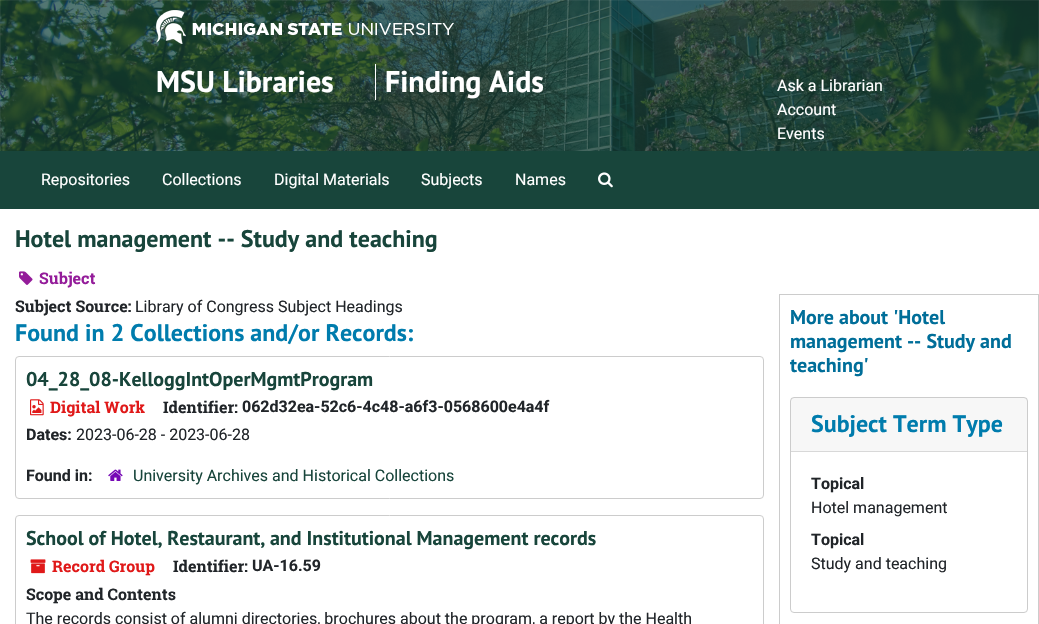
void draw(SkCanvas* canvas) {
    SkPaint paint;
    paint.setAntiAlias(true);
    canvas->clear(0xFFFFFFFF);
    canvas->drawImageRect(SkImages::DeferredFromEncodedData(SkData::MakeFromFileName("img1.png")), SkRect::MakeXYWH(0, 0, 1039, 151), SkSamplingOptions());
    canvas->drawImageRect(SkImages::DeferredFromEncodedData(SkData::MakeFromFileName("img2.png")), SkRect::MakeXYWH(156, 10, 298, 34), SkSamplingOptions());
    paint.setColor(0xFFFFFFFF);
    canvas->drawRect(SkRect::MakeXYWH(375, 64, 1, 36), paint);
    SkFont font1(fontMgr->matchFamilyStyle("PT Sans", SkFontStyle::Bold()), 30);
    font1.setSubpixel(true);
    canvas->drawString("MSU Libraries", 156, 92, font1, paint);
    canvas->drawString("Finding Aids", 385, 92, font1, paint);
    SkFont font2(fontMgr->matchFamilyStyle("Roboto", SkFontStyle::Normal()), 16);
    font2.setSubpixel(true);
    canvas->drawString("Ask a Librarian", 777, 91, font2, paint);
    canvas->drawString("Account", 777, 115, font2, paint);
    canvas->drawString("Events", 777, 139, font2, paint);
    paint.setStyle(SkPaint::kStroke_Style);
    paint.setStrokeWidth(1);
    paint.setColor(0xFF18453B);
    canvas->drawRect(SkRect::MakeXYWH(0.5f, 151.5f, 1038, 57), paint);
    paint.setStyle(SkPaint::kFill_Style);
    canvas->drawRect(SkRect::MakeXYWH(1, 152, 1037, 56), paint);
    paint.setColor(0xFFFFFFFF);
    canvas->drawString("Repositories", 41, 185, font2, paint);
    canvas->drawString("Collections", 162, 185, font2, paint);
    canvas->drawString("Digital Materials", 274, 185, font2, paint);
    canvas->drawString("Subjects", 421, 185, font2, paint);
    canvas->drawString("Names", 515, 185, font2, paint);
    canvas->drawImageRect(SkImages::DeferredFromEncodedData(SkData::MakeFromFileName("img3.png")), SkRect::MakeXYWH(598, 172, 15, 16), SkSamplingOptions());
    SkFont font3(fontMgr->matchFamilyStyle("PT Sans", SkFontStyle::Bold()), 24);
    font3.setSubpixel(true);
    paint.setColor(0xFF18453B);
    canvas->drawString("Hotel management -- Study and teaching", 15, 247, font3, paint);
    canvas->drawImageRect(SkImages::DeferredFromEncodedData(SkData::MakeFromFileName("img4.png")), SkRect::MakeXYWH(19, 271, 14, 14), SkSamplingOptions());
    SkFont font4(fontMgr->matchFamilyStyle("Roboto Slab", SkFontStyle::Bold()), 16);
    font4.setSubpixel(true);
    paint.setColor(0xFF941C9A);
    canvas->drawString("Subject", 39, 284, font4, paint);
    paint.setColor(0xFF212529);
    canvas->drawString("Subject Source:", 15, 312, font4, paint);
    canvas->drawString("Library of Congress Subject Headings", 135, 312, font2, paint);
    paint.setColor(0xFF007CAD);
    canvas->drawString("Found in 2 Collections and/or Records:", 15, 341, font3, paint);
    paint.setStyle(SkPaint::kStroke_Style);
    paint.setColor(0xFFCCCCCC);
    canvas->drawRoundRect(SkRect::MakeXYWH(15.5f, 356.5f, 748, 142), 3.5f, 3.5f, paint);
    SkFont font5(fontMgr->matchFamilyStyle("PT Sans", SkFontStyle::Bold()), 20);
    font5.setSubpixel(true);
    paint.setStyle(SkPaint::kFill_Style);
    paint.setColor(0xFF18453B);
    canvas->drawString("04_28_08-KelloggIntOperMgmtProgram", 26, 386, font5, paint);
    canvas->drawImageRect(SkImages::DeferredFromEncodedData(SkData::MakeFromFileName("img5.png")), SkRect::MakeXYWH(30, 399, 14, 17), SkSamplingOptions());
    paint.setColor(0xFFE01919);
    canvas->drawString("Digital Work", 50, 413, font4, paint);
    paint.setColor(0xFF212529);
    canvas->drawString("Identifier:", 163, 413, font4, paint);
    SkFont font6(fontMgr->matchFamilyStyle("Roboto", SkFontStyle::Bold()), 16);
    font6.setSubpixel(true);
    canvas->drawString("062d32ea-52c6-4c48-a6f3-0568600e4a4f", 242, 412, font6, paint);
    canvas->drawString("Dates:", 26, 440, font6, paint);
    canvas->drawString("2023-06-28 - 2023-06-28", 76, 440, font2, paint);
    canvas->drawString("Found in:", 26, 481, font6, paint);
    canvas->drawImageRect(SkImages::DeferredFromEncodedData(SkData::MakeFromFileName("img6.png")), SkRect::MakeXYWH(108, 469, 15, 12), SkSamplingOptions());
    paint.setColor(0xFF18453B);
    canvas->drawString("University Archives and Historical Collections", 133, 481, font2, paint);
    paint.setStyle(SkPaint::kStroke_Style);
    paint.setColor(0xFFCCCCCC);
    canvas->drawRoundRect(SkRect::MakeXYWH(15.5f, 515.5f, 748, 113), 3.5f, 3.5f, paint);
    paint.setStyle(SkPaint::kFill_Style);
    paint.setColor(0xFF18453B);
    canvas->drawString("School of Hotel, Restaurant, and Institutional Management records", 26, 545, font5, paint);
    canvas->drawImageRect(SkImages::DeferredFromEncodedData(SkData::MakeFromFileName("img7.png")), SkRect::MakeXYWH(30, 559, 16, 15), SkSamplingOptions());
    paint.setColor(0xFFE01919);
    canvas->drawString("Record Group", 52, 572, font4, paint);
    paint.setColor(0xFF212529);
    canvas->drawString("Identifier:", 173, 572, font4, paint);
    canvas->drawString("UA-16.59", 252, 571, font6, paint);
    canvas->drawString("Scope and Contents", 26, 600, font4, paint);
    canvas->drawString("The records consist of alumni directories, brochures about the program, a report by the Health", 26, 624, font2, paint);
    paint.setStyle(SkPaint::kStroke_Style);
    paint.setColor(0xFFCCCCCC);
    canvas->drawRect(SkRect::MakeXYWH(779.5f, 294.5f, 259, 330), paint);
    paint.setStyle(SkPaint::kFill_Style);
    paint.setColor(0xFF006E99);
    canvas->drawString("More about 'Hotel", 790, 324, font5, paint);
    canvas->drawString("management -- Study and", 790, 348, font5, paint);
    canvas->drawString("teaching'", 790, 372, font5, paint);
    paint.setStyle(SkPaint::kStroke_Style);
    paint.setColor(0xFFCCCCCC);
    canvas->drawRoundRect(SkRect::MakeXYWH(790.5f, 397.5f, 237, 215), 3.5f, 3.5f, paint);
    paint.setStyle(SkPaint::kFill_Style);
    paint.setColor(0x08000000);
    canvas->drawRect(SkRect::MakeXYWH(791, 398, 236, 53), paint);
    paint.setColor(0xFFD8D8D8);
    canvas->drawRect(SkRect::MakeXYWH(791, 451, 236, 1), paint);
    paint.setColor(0xFF007CAD);
    canvas->drawString("Subject Term Type", 811, 432, font3, paint);
    paint.setColor(0xFF212529);
    canvas->drawString("Topical", 811, 489, font6, paint);
    canvas->drawString("Hotel management", 811, 513, font2, paint);
    canvas->drawString("Topical", 811, 545, font6, paint);
    canvas->drawString("Study and teaching", 811, 569, font2, paint);
}
